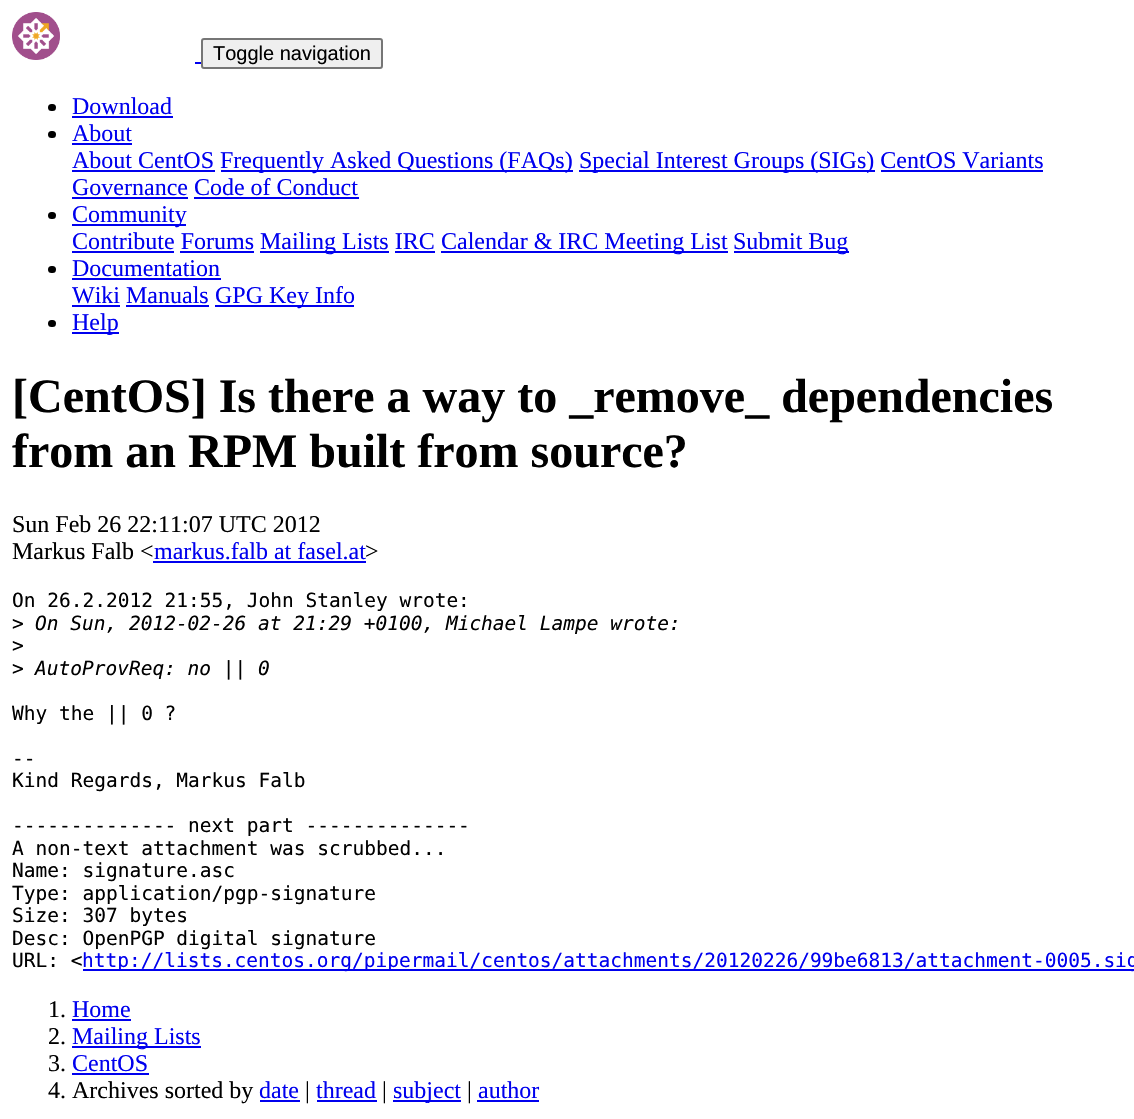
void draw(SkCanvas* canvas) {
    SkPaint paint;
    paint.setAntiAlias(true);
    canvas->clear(0xFFFFFFFF);
    canvas->drawImageRect(SkImages::DeferredFromEncodedData(SkData::MakeFromFileName("img1.png")), SkRect::MakeXYWH(12, 12, 48, 48), SkSamplingOptions());
    paint.setColor(0xFF0000EE);
    canvas->drawRect(SkRect::MakeXYWH(195, 62, 6, 2), paint);
    paint.setColor(0xFFEFEFEF);
    canvas->drawRoundRect(SkRect::MakeXYWH(202, 39, 180, 29), 2, 2, paint);
    paint.setStyle(SkPaint::kStroke_Style);
    paint.setStrokeWidth(2);
    paint.setColor(0xFF767676);
    canvas->drawRoundRect(SkRect::MakeXYWH(202, 39, 180, 29), 2, 2, paint);
    SkFont font1(fontMgr->matchFamilyStyle("Liberation Sans", SkFontStyle::Normal()), 20);
    font1.setSubpixel(true);
    paint.setStyle(SkPaint::kFill_Style);
    paint.setColor(0xFF000000);
    canvas->drawString("Toggle navigation", 213, 60, font1, paint);
    canvas->drawRoundRect(SkRect::MakeXYWH(48, 104, 8, 7), 3.5f, 3.5f, paint);
    SkFont font2(fontMgr->matchFamilyStyle("Liberation Serif", SkFontStyle::Normal()), 24);
    font2.setSubpixel(true);
    paint.setColor(0xFF0000EE);
    canvas->drawString("Download", 72, 114, font2, paint);
    canvas->drawRect(SkRect::MakeXYWH(72, 116, 101, 2), paint);
    paint.setColor(0xFF000000);
    canvas->drawRoundRect(SkRect::MakeXYWH(48, 131, 8, 7), 3.5f, 3.5f, paint);
    paint.setColor(0xFF0000EE);
    canvas->drawString("About", 72, 141, font2, paint);
    canvas->drawRect(SkRect::MakeXYWH(72, 143, 60, 2), paint);
    canvas->drawString("About CentOS", 72, 168, font2, paint);
    canvas->drawRect(SkRect::MakeXYWH(72, 170, 143, 2), paint);
    canvas->drawRect(SkRect::MakeXYWH(221, 170, 352, 2), paint);
    canvas->drawString("Frequently Asked Questions (FAQs)", 220, 168, font2, paint);
    canvas->drawRect(SkRect::MakeXYWH(579, 170, 296, 2), paint);
    canvas->drawString("Special Interest Groups (SIGs) CentOS Variants", 579, 168, font2, paint);
    canvas->drawRect(SkRect::MakeXYWH(881, 170, 162, 2), paint);
    canvas->drawString("Governance Code of Conduct", 72, 195, font2, paint);
    canvas->drawRect(SkRect::MakeXYWH(72, 197, 116, 2), paint);
    canvas->drawRect(SkRect::MakeXYWH(194, 197, 165, 2), paint);
    paint.setColor(0xFF000000);
    canvas->drawRoundRect(SkRect::MakeXYWH(48, 212, 8, 7), 3.5f, 3.5f, paint);
    paint.setColor(0xFF0000EE);
    canvas->drawRect(SkRect::MakeXYWH(72, 224, 114, 2), paint);
    canvas->drawString("Community", 72, 222, font2, paint);
    canvas->drawString("Contribute Forums", 72, 249, font2, paint);
    canvas->drawRect(SkRect::MakeXYWH(72, 251, 102, 2), paint);
    canvas->drawRect(SkRect::MakeXYWH(260, 251, 129, 2), paint);
    canvas->drawString("Mailing Lists IRC", 260, 249, font2, paint);
    canvas->drawRect(SkRect::MakeXYWH(441, 251, 287, 2), paint);
    canvas->drawString("Calendar & IRC Meeting List", 441, 249, font2, paint);
    canvas->drawRect(SkRect::MakeXYWH(734, 251, 115, 2), paint);
    canvas->drawString("Submit Bug", 733, 249, font2, paint);
    canvas->drawRect(SkRect::MakeXYWH(180, 251, 74, 2), paint);
    canvas->drawRect(SkRect::MakeXYWH(395, 251, 40, 2), paint);
    paint.setColor(0xFF000000);
    canvas->drawRoundRect(SkRect::MakeXYWH(48, 266, 8, 7), 3.5f, 3.5f, paint);
    paint.setColor(0xFF0000EE);
    canvas->drawString("Documentation", 72, 276, font2, paint);
    canvas->drawRect(SkRect::MakeXYWH(72, 278, 149, 2), paint);
    canvas->drawString("Wiki Manuals", 72, 303, font2, paint);
    canvas->drawRect(SkRect::MakeXYWH(72, 305, 48, 2), paint);
    canvas->drawRect(SkRect::MakeXYWH(215, 305, 139, 2), paint);
    canvas->drawString("GPG Key Info", 215, 303, font2, paint);
    canvas->drawRect(SkRect::MakeXYWH(126, 305, 83, 2), paint);
    paint.setColor(0xFF000000);
    canvas->drawRoundRect(SkRect::MakeXYWH(48, 320, 8, 7), 3.5f, 3.5f, paint);
    paint.setColor(0xFF0000EE);
    canvas->drawRect(SkRect::MakeXYWH(72, 332, 47, 2), paint);
    canvas->drawString("Help", 72, 330, font2, paint);
    SkFont font3(fontMgr->matchFamilyStyle("Liberation Serif", SkFontStyle::Bold()), 48);
    font3.setSubpixel(true);
    paint.setColor(0xFF000000);
    canvas->drawString("[CentOS] Is there a way to _remove_ dependencies", 12, 412, font3, paint);
    canvas->drawString("from an RPM built from source?", 12, 467, font3, paint);
    canvas->drawString("Sun Feb 26 22:11:07 UTC 2012", 12, 532, font2, paint);
    canvas->drawString("Markus Falb <", 12, 559, font2, paint);
    paint.setColor(0xFF0000EE);
    canvas->drawString("markus.falb at fasel.at", 154, 559, font2, paint);
    canvas->drawRect(SkRect::MakeXYWH(153, 561, 213, 2), paint);
    paint.setColor(0xFF000000);
    canvas->drawString(">", 365, 559, font2, paint);
    SkFont font4(fontMgr->matchFamilyStyle("DejaVu Sans Mono", SkFontStyle::Normal()), 19.5f);
    font4.setSubpixel(true);
    canvas->drawString("On 26.2.2012 21:55, John Stanley wrote:", 12, 607, font4, paint);
    canvas->drawString(">", 12, 630, font4, paint);
    SkFont font5(fontMgr->matchFamilyStyle("DejaVu Sans Mono", SkFontStyle::Italic()), 19.5f);
    font5.setSubpixel(true);
    canvas->drawString("On Sun, 2012-02-26 at 21:29 +0100, Michael Lampe wrote:", 35, 630, font5, paint);
    canvas->drawString(">", 12, 652, font4, paint);
    canvas->drawString(">", 12, 675, font4, paint);
    canvas->drawString("AutoProvReq: no || 0", 35, 675, font5, paint);
    canvas->drawString("Why the || 0 ?", 12, 720, font4, paint);
    canvas->drawString("--", 12, 765, font4, paint);
    canvas->drawString("Kind Regards, Markus Falb", 12, 787, font4, paint);
    canvas->drawString("-------------- next part --------------", 12, 832, font4, paint);
    canvas->drawString("A non-text attachment was scrubbed...", 12, 855, font4, paint);
    canvas->drawString("Name: signature.asc", 12, 877, font4, paint);
    canvas->drawString("Type: application/pgp-signature", 12, 900, font4, paint);
    canvas->drawString("Size: 307 bytes", 12, 922, font4, paint);
    canvas->drawString("Desc: OpenPGP digital signature", 12, 945, font4, paint);
    canvas->drawString("URL: <", 12, 967, font4, paint);
    paint.setColor(0xFF0000EE);
    canvas->drawRect(SkRect::MakeXYWH(83, 969, 1051, 2), paint);
    canvas->drawString("http://lists.centos.org/pipermail/centos/attachments/20120226/99be6813/attachment-0005.sig", 82, 967, font4, paint);
    paint.setColor(0xFF000000);
    canvas->drawString("1.", 48, 1017, font2, paint);
    paint.setColor(0xFF0000EE);
    canvas->drawString("Home", 72, 1017, font2, paint);
    canvas->drawRect(SkRect::MakeXYWH(72, 1019, 59, 2), paint);
    paint.setColor(0xFF000000);
    canvas->drawString("2.", 48, 1044, font2, paint);
    paint.setColor(0xFF0000EE);
    canvas->drawRect(SkRect::MakeXYWH(72, 1046, 129, 2), paint);
    canvas->drawString("Mailing Lists", 72, 1044, font2, paint);
    paint.setColor(0xFF000000);
    canvas->drawString("3.", 48, 1071, font2, paint);
    paint.setColor(0xFF0000EE);
    canvas->drawString("CentOS", 72, 1071, font2, paint);
    canvas->drawRect(SkRect::MakeXYWH(72, 1073, 77, 2), paint);
    paint.setColor(0xFF000000);
    canvas->drawString("4. Archives sorted by", 48, 1098, font2, paint);
    paint.setColor(0xFF0000EE);
    canvas->drawString("date", 259, 1098, font2, paint);
    canvas->drawRect(SkRect::MakeXYWH(260, 1100, 40, 2), paint);
    paint.setColor(0xFF000000);
    canvas->drawString("|", 305, 1098, font2, paint);
    paint.setColor(0xFF0000EE);
    canvas->drawString("thread", 316, 1098, font2, paint);
    canvas->drawRect(SkRect::MakeXYWH(317, 1100, 60, 2), paint);
    paint.setColor(0xFF000000);
    canvas->drawString("|", 382, 1098, font2, paint);
    paint.setColor(0xFF0000EE);
    canvas->drawRect(SkRect::MakeXYWH(393, 1100, 68, 2), paint);
    canvas->drawString("subject", 393, 1098, font2, paint);
    paint.setColor(0xFF000000);
    canvas->drawString("|", 467, 1098, font2, paint);
    paint.setColor(0xFF0000EE);
    canvas->drawString("author", 478, 1098, font2, paint);
    canvas->drawRect(SkRect::MakeXYWH(477, 1100, 62, 2), paint);
}
